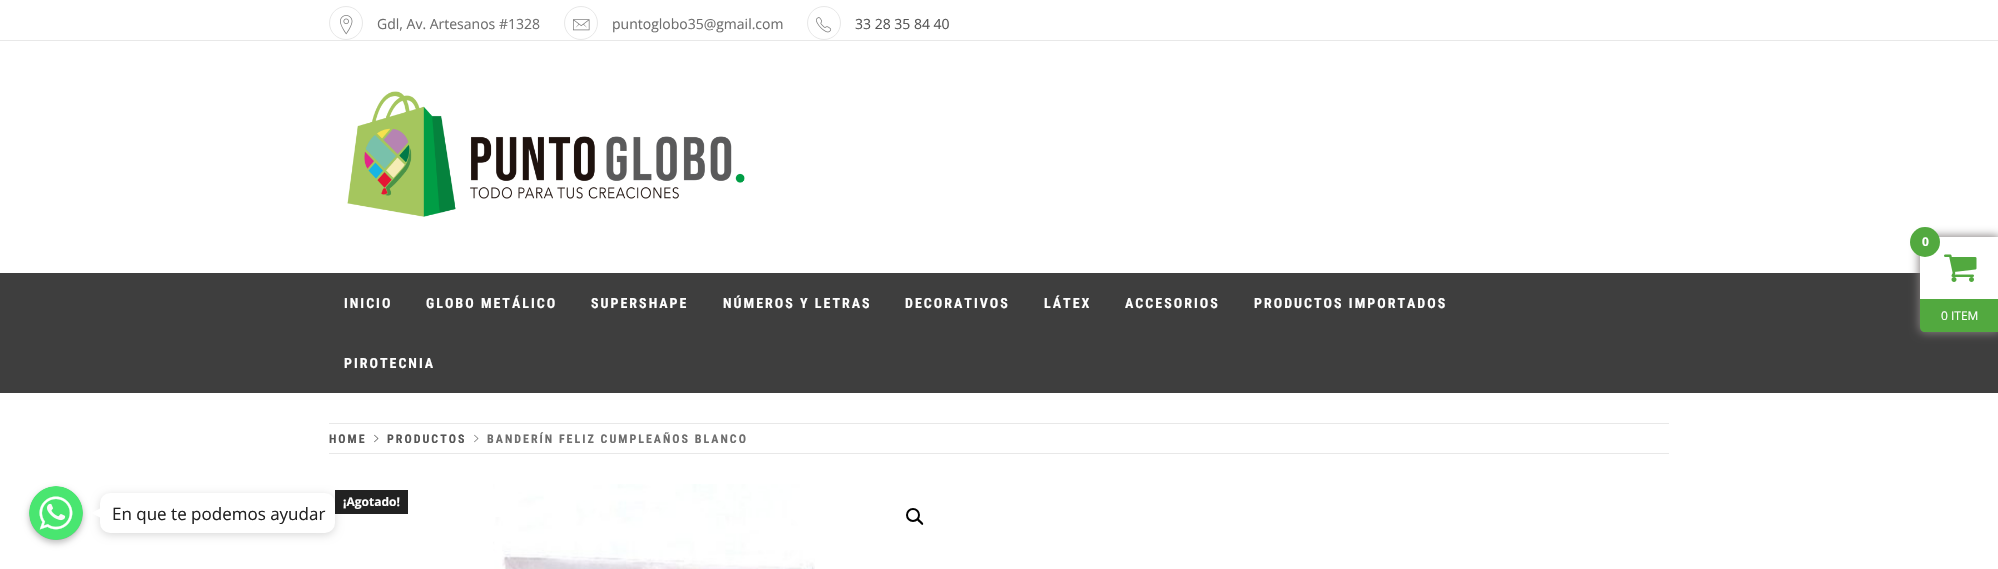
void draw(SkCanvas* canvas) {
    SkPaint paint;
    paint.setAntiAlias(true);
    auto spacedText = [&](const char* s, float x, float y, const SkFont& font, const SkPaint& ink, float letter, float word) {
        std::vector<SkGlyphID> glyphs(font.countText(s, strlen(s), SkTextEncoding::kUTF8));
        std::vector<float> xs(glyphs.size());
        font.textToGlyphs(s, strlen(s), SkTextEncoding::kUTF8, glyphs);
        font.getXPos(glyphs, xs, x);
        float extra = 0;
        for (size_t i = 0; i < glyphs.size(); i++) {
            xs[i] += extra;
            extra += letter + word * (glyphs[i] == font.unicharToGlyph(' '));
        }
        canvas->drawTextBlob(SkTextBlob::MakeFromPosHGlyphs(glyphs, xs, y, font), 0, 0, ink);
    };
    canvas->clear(0xFFFFFFFF);
    paint.setColor(0xFFE8E8E8);
    canvas->drawRect(SkRect::MakeXYWH(0, 40, 1998, 1), paint);
    paint.setStyle(SkPaint::kStroke_Style);
    paint.setStrokeWidth(1);
    canvas->drawCircle(346, 23, 16.5f, paint);
    canvas->drawImageRect(SkImages::DeferredFromEncodedData(SkData::MakeFromFileName("img1.png")), SkRect::MakeXYWH(340, 15, 13, 20), SkSamplingOptions());
    SkFont font1(fontMgr->matchFamilyStyle("Open Sans", SkFontStyle::Normal()), 14);
    font1.setSubpixel(true);
    paint.setStyle(SkPaint::kFill_Style);
    paint.setColor(0xFF6E6E6E);
    canvas->drawString("Gdl, Av. Artesanos #1328", 377, 29, font1, paint);
    paint.setStyle(SkPaint::kStroke_Style);
    paint.setColor(0xFFE8E8E8);
    canvas->drawCircle(581, 23, 16.5f, paint);
    canvas->drawImageRect(SkImages::DeferredFromEncodedData(SkData::MakeFromFileName("img2.png")), SkRect::MakeXYWH(573, 19, 17, 12), SkSamplingOptions());
    paint.setStyle(SkPaint::kFill_Style);
    paint.setColor(0xFF6E6E6E);
    canvas->drawString("puntoglobo35@gmail.com", 612, 29, font1, paint);
    paint.setStyle(SkPaint::kStroke_Style);
    paint.setColor(0xFFE8E8E8);
    canvas->drawCircle(824, 23, 16.5f, paint);
    canvas->drawImageRect(SkImages::DeferredFromEncodedData(SkData::MakeFromFileName("img3.png")), SkRect::MakeXYWH(816, 17, 16, 16), SkSamplingOptions());
    paint.setStyle(SkPaint::kFill_Style);
    paint.setColor(0xFF555555);
    canvas->drawString("33 28 35 84 40", 855, 29, font1, paint);
    canvas->drawImageRect(SkImages::DeferredFromEncodedData(SkData::MakeFromFileName("img4.png")), SkRect::MakeXYWH(347, 91, 398, 126), SkSamplingOptions());
    paint.setColor(0xFF3E3E3E);
    canvas->drawRect(SkRect::MakeXYWH(0, 273, 1998, 120), paint);
    SkFont font2(fontMgr->matchFamilyStyle("Roboto Condensed", SkFontStyle::Bold()), 14);
    font2.setSubpixel(true);
    paint.setColor(0xFFFFFFFF);
    spacedText("INICIO", 344, 308, font2, paint, 2, 0);
    spacedText("GLOBO METÁLICO", 426, 308, font2, paint, 2, 0);
    spacedText("SUPERSHAPE", 591, 308, font2, paint, 2, 0);
    spacedText("NÚMEROS Y LETRAS", 723, 308, font2, paint, 2, 0);
    spacedText("DECORATIVOS", 905, 308, font2, paint, 2, 0);
    spacedText("LÁTEX", 1044, 308, font2, paint, 2, 0);
    spacedText("ACCESORIOS", 1125, 308, font2, paint, 2, 0);
    spacedText("PRODUCTOS IMPORTADOS", 1254, 308, font2, paint, 2, 0);
    spacedText("PIROTECNIA", 344, 368, font2, paint, 2, 0);
    paint.setColor(0xFFE8E8E8);
    canvas->drawRect(SkRect::MakeXYWH(329, 423, 1340, 1), paint);
    canvas->drawRect(SkRect::MakeXYWH(329, 453, 1340, 1), paint);
    SkFont font3(fontMgr->matchFamilyStyle("Roboto Condensed", SkFontStyle::Bold()), 12);
    font3.setSubpixel(true);
    paint.setColor(0xFF555555);
    spacedText("HOME", 329, 443, font3, paint, 2, 0);
    canvas->drawImageRect(SkImages::DeferredFromEncodedData(SkData::MakeFromFileName("img5.png")), SkRect::MakeXYWH(374, 434, 5, 9), SkSamplingOptions());
    spacedText("PRODUCTOS", 387, 443, font3, paint, 2, 0);
    canvas->drawImageRect(SkImages::DeferredFromEncodedData(SkData::MakeFromFileName("img6.png")), SkRect::MakeXYWH(474, 434, 5, 9), SkSamplingOptions());
    paint.setColor(0xFF6E6E6E);
    spacedText("BANDERÍN FELIZ CUMPLEAÑOS BLANCO", 487, 443, font3, paint, 2, 0);
    paint.setColor(0xFF222222);
    canvas->drawRect(SkRect::MakeXYWH(335, 490, 73, 24), paint);
    SkFont font4(fontMgr->matchFamilyStyle("Open Sans", SkFontStyle::Bold()), 12);
    font4.setSubpixel(true);
    paint.setColor(0xFFFFFFFF);
    canvas->drawString("¡Agotado!", 343, 506, font4, paint);
    canvas->drawImageRect(SkImages::DeferredFromEncodedData(SkData::MakeFromFileName("img7.png")), SkRect::MakeXYWH(493, 484, 322, 85), SkSamplingOptions());
    paint.setStyle(SkPaint::kStroke_Style);
    paint.setStrokeWidth(2);
    paint.setColor(0xFF000000);
    canvas->drawCircle(913, 515, 6, paint);
    paint.setStyle(SkPaint::kFill_Style);
    canvas->drawPath(SkPathBuilder().moveTo(917.5f, 519).cubicTo(918.5f, 518, 920.5f, 520.5f, 921, 521).cubicTo(921.5f, 521.5f, 924, 523.5f, 923, 524.5f).cubicTo(922, 526, 920, 523, 919.5f, 522.5f).cubicTo(919, 522, 916, 520, 917.5f, 519).close().detach(), paint);
    paint.setColor(0xFF858080);
    paint.setMaskFilter(SkMaskFilter::MakeBlur(kNormal_SkBlurStyle, 5));
    canvas->drawRoundRect(SkRect::MakeXYWH(1919, 236, 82, 97), 6, 6, paint);
    paint.setMaskFilter(nullptr);
    paint.setColor(0xFFFFFFFF);
    canvas->drawRect(SkRect::MakeXYWH(1920, 237, 78, 62), paint);
    paint.setColor(0xFF52A93F);
    canvas->drawCircle(1925, 242, 15, paint);
    paint.setColor(0xFFFFFFFF);
    canvas->drawString("0", 1922, 246, font4, paint);
    canvas->drawImageRect(SkImages::DeferredFromEncodedData(SkData::MakeFromFileName("img8.png")), SkRect::MakeXYWH(1944, 254, 33, 28), SkSamplingOptions());
    paint.setColor(0xFF52A93F);
    canvas->drawPath(SkPathBuilder().moveTo(1920, 299).lineTo(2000, 299).lineTo(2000, 332).lineTo(1925, 332).cubicTo(1922, 332, 1920, 330, 1920, 327).close().detach(), paint);
    SkFont font5(fontMgr->matchFamilyStyle("Open Sans", SkFontStyle::Normal()), 12);
    font5.setSubpixel(true);
    paint.setColor(0xFFFFFFFF);
    canvas->drawString("0 ITEM", 1941, 320, font5, paint);
    paint.setColor(0x40000000);
    paint.setMaskFilter(SkMaskFilter::MakeBlur(kNormal_SkBlurStyle, 3));
    canvas->drawRoundRect(SkRect::MakeXYWH(29, 489, 54, 54), 27, 27, paint);
    paint.setMaskFilter(nullptr);
    canvas->save();
    canvas->clipPath(SkPathBuilder().moveTo(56, 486).cubicTo(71, 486, 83, 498, 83, 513).cubicTo(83, 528, 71, 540, 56, 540).cubicTo(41, 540, 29, 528, 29, 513).cubicTo(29, 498, 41, 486, 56, 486).close().detach(), true);
    paint.setMaskFilter(SkMaskFilter::MakeBlur(kNormal_SkBlurStyle, 3));
    canvas->drawRoundRect(SkRect::MakeXYWH(29, 489, 54, 54), 27, 27, paint);
    paint.setMaskFilter(nullptr);
    canvas->restore();
    canvas->drawImageRect(SkImages::DeferredFromEncodedData(SkData::MakeFromFileName("img9.png")), SkRect::MakeXYWH(29, 486, 54, 54), SkSamplingOptions());
    paint.setColor(0x26000000);
    paint.setMaskFilter(SkMaskFilter::MakeBlur(kNormal_SkBlurStyle, 4));
    canvas->drawRoundRect(SkRect::MakeXYWH(100, 495, 235, 40), 10, 10, paint);
    paint.setMaskFilter(nullptr);
    paint.setColor(0xFFFFFFFF);
    canvas->drawRoundRect(SkRect::MakeXYWH(100, 493, 235, 40), 10, 10, paint);
    canvas->drawPath(SkPathBuilder().moveTo(101, 508).lineTo(101, 518).lineTo(91, 513).close().detach(), paint);
    SkFont font6(fontMgr->matchFamilyStyle("Open Sans", SkFontStyle::Normal()), 17);
    font6.setSubpixel(true);
    paint.setColor(0xFF222222);
    canvas->drawString("En que te podemos ayudar", 112, 520, font6, paint);
}
